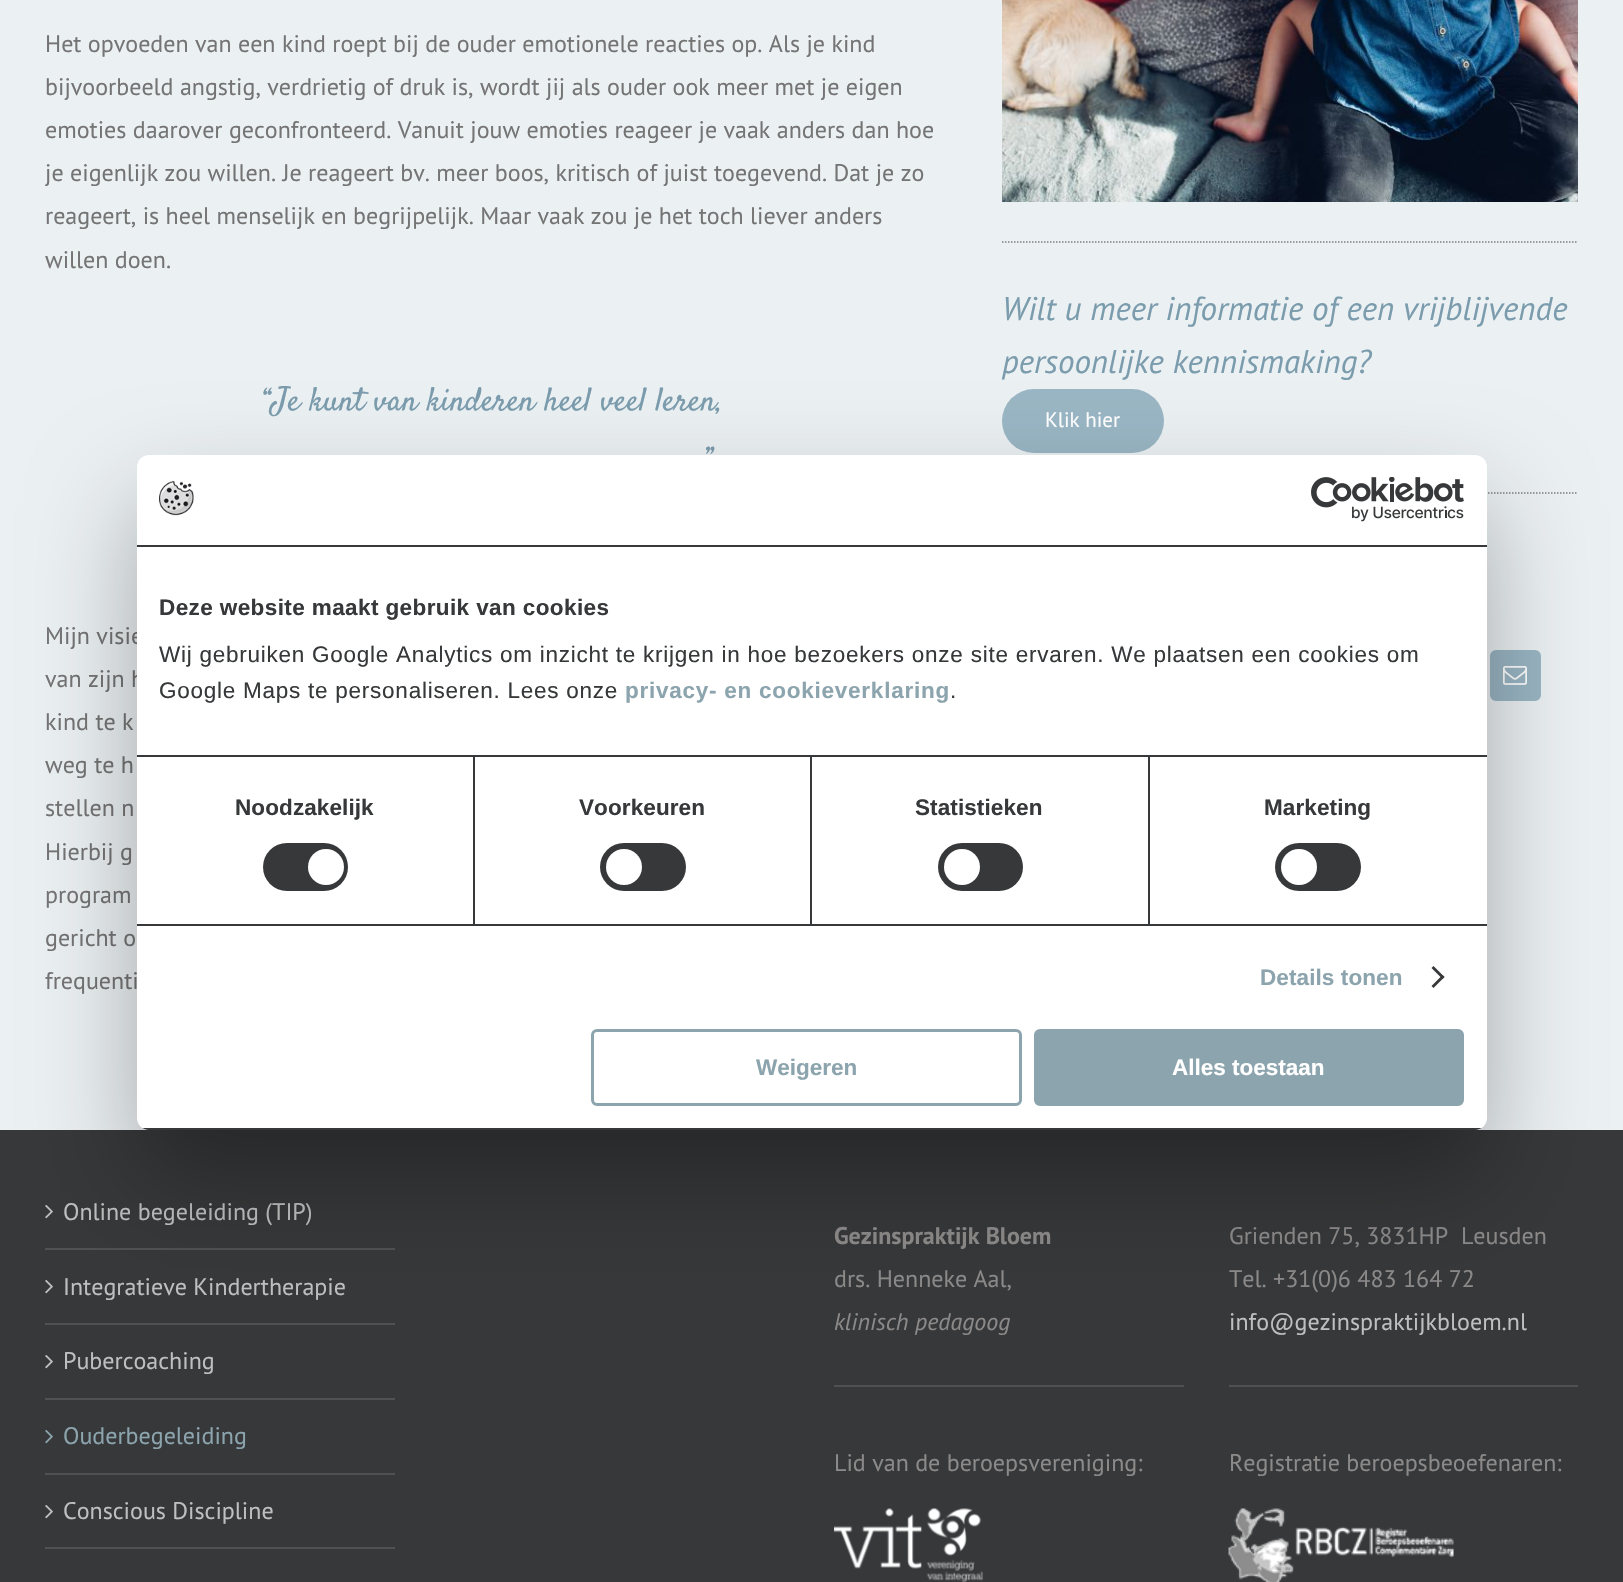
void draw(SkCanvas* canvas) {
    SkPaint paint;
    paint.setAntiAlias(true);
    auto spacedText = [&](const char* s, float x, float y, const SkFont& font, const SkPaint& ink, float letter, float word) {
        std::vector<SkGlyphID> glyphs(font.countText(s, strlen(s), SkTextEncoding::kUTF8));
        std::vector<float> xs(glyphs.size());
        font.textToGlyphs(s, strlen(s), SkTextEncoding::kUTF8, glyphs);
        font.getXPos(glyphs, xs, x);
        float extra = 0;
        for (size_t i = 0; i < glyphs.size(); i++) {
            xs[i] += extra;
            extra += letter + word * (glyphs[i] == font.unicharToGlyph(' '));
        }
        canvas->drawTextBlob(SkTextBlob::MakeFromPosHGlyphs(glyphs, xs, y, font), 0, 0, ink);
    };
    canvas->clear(0xFFEBF0F3);
    SkFont font1(fontMgr->matchFamilyStyle("PT Sans", SkFontStyle::Normal()), 24);
    font1.setSubpixel(true);
    paint.setColor(0xFF747474);
    canvas->drawString("Het opvoeden van een kind roept bij de ouder emotionele reacties op. Als je kind", 45, 52, font1, paint);
    canvas->drawString("bijvoorbeeld angstig, verdrietig of druk is, wordt jij als ouder ook meer met je eigen", 45, 95, font1, paint);
    canvas->drawString("emoties daarover geconfronteerd. Vanuit jouw emoties reageer je vaak anders dan hoe", 45, 138, font1, paint);
    canvas->drawString("je eigenlijk zou willen. Je reageert bv. meer boos, kritisch of juist toegevend. Dat je zo", 45, 181, font1, paint);
    canvas->drawString("reageert, is heel menselijk en begrijpelijk. Maar vaak zou je het toch liever anders", 45, 224, font1, paint);
    canvas->drawString("willen doen.", 45, 268, font1, paint);
    SkFont font2(fontMgr->matchFamilyStyle("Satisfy", SkFontStyle::Normal()), 33);
    font2.setSubpixel(true);
    paint.setColor(0xFF7B9CAD);
    canvas->drawString("“Je kunt van kinderen heel veel leren,", 262, 410, font2, paint);
    canvas->drawString("”", 704, 469, font2, paint);
    paint.setColor(0xFF747474);
    canvas->drawString("Mijn visie", 45, 644, font1, paint);
    canvas->drawString("van zijn h", 45, 687, font1, paint);
    canvas->drawString("kind te k", 45, 730, font1, paint);
    canvas->drawString("weg te h", 45, 773, font1, paint);
    canvas->drawString("stellen n", 45, 816, font1, paint);
    canvas->drawString("Hierbij g", 45, 860, font1, paint);
    canvas->drawString("program", 45, 903, font1, paint);
    canvas->drawString("gericht o", 45, 946, font1, paint);
    canvas->drawString("frequenti", 45, 989, font1, paint);
    canvas->drawImageRect(SkImages::DeferredFromEncodedData(SkData::MakeFromFileName("img1.png")), SkRect::MakeXYWH(1002, 0, 576, 202), SkSamplingOptions());
    paint.setStyle(SkPaint::kStroke_Style);
    paint.setStrokeWidth(1.5f);
    paint.setColor(0xFF7F7F7F);
    paint.setPathEffect(SkDashPathEffect::Make({{1.5f, 1.5f}}, 0));
    canvas->drawPath(SkPathBuilder().moveTo(1002, 242).lineTo(1578, 242).detach(), paint);
    paint.setPathEffect(nullptr);
    SkFont font3(fontMgr->matchFamilyStyle("PT Sans", SkFontStyle::Italic()), 33);
    font3.setSubpixel(true);
    paint.setStyle(SkPaint::kFill_Style);
    paint.setColor(0xFF7B9CAD);
    canvas->drawString("Wilt u meer informatie of een vrijblijvende", 1002, 320, font3, paint);
    canvas->drawString("persoonlijke kennismaking?", 1002, 373, font3, paint);
    paint.setColor(0xFF9AB6C4);
    canvas->drawRoundRect(SkRect::MakeXYWH(1002, 389, 162, 64), 32, 32, paint);
    SkFont font4(fontMgr->matchFamilyStyle("PT Sans", SkFontStyle::Normal()), 21);
    font4.setSubpixel(true);
    paint.setColor(0xFFFFFFFF);
    canvas->drawString("Klik hier", 1045, 427, font4, paint);
    paint.setStyle(SkPaint::kStroke_Style);
    paint.setColor(0xFF7F7F7F);
    paint.setPathEffect(SkDashPathEffect::Make({{1.5f, 1.5f}}, 0));
    canvas->drawPath(SkPathBuilder().moveTo(1002, 493).lineTo(1578, 493).detach(), paint);
    paint.setPathEffect(nullptr);
    paint.setStyle(SkPaint::kFill_Style);
    paint.setColor(0xFF9AB6C4);
    canvas->drawRoundRect(SkRect::MakeXYWH(1491, 651, 49, 49), 5, 5, paint);
    paint.setStyle(SkPaint::kStroke_Style);
    paint.setStrokeWidth(2);
    canvas->drawRoundRect(SkRect::MakeXYWH(1491, 651, 49, 49), 5, 5, paint);
    canvas->drawImageRect(SkImages::DeferredFromEncodedData(SkData::MakeFromFileName("img2.png")), SkRect::MakeXYWH(1503, 666, 24, 19), SkSamplingOptions());
    paint.setStyle(SkPaint::kFill_Style);
    paint.setColor(0xFF363839);
    canvas->drawRect(SkRect::MakeXYWH(0, 1130, 1623, 452), paint);
    paint.setColor(0xFF505152);
    canvas->drawRect(SkRect::MakeXYWH(45, 1248, 350, 2), paint);
    canvas->drawImageRect(SkImages::DeferredFromEncodedData(SkData::MakeFromFileName("img3.png")), SkRect::MakeXYWH(45, 1205, 8, 14), SkSamplingOptions());
    paint.setColor(0xFFBFBFBF);
    canvas->drawString("Online begeleiding (TIP)", 63, 1220, font1, paint);
    paint.setColor(0xFF505152);
    canvas->drawRect(SkRect::MakeXYWH(45, 1323, 350, 2), paint);
    canvas->drawImageRect(SkImages::DeferredFromEncodedData(SkData::MakeFromFileName("img3.png")), SkRect::MakeXYWH(45, 1280, 8, 14), SkSamplingOptions());
    paint.setColor(0xFFBFBFBF);
    canvas->drawString("Integratieve Kindertherapie", 63, 1295, font1, paint);
    paint.setColor(0xFF505152);
    canvas->drawRect(SkRect::MakeXYWH(45, 1398, 350, 2), paint);
    canvas->drawImageRect(SkImages::DeferredFromEncodedData(SkData::MakeFromFileName("img3.png")), SkRect::MakeXYWH(45, 1355, 8, 14), SkSamplingOptions());
    paint.setColor(0xFFBFBFBF);
    canvas->drawString("Pubercoaching", 63, 1369, font1, paint);
    paint.setColor(0xFF505152);
    canvas->drawRect(SkRect::MakeXYWH(45, 1473, 350, 2), paint);
    canvas->drawImageRect(SkImages::DeferredFromEncodedData(SkData::MakeFromFileName("img4.png")), SkRect::MakeXYWH(45, 1430, 8, 14), SkSamplingOptions());
    paint.setColor(0xFF8CA4AD);
    canvas->drawString("Ouderbegeleiding", 63, 1444, font1, paint);
    paint.setColor(0xFF505152);
    canvas->drawRect(SkRect::MakeXYWH(45, 1547, 350, 2), paint);
    canvas->drawImageRect(SkImages::DeferredFromEncodedData(SkData::MakeFromFileName("img3.png")), SkRect::MakeXYWH(45, 1505, 8, 14), SkSamplingOptions());
    paint.setColor(0xFFBFBFBF);
    canvas->drawString("Conscious Discipline", 63, 1519, font1, paint);
    SkFont font5(fontMgr->matchFamilyStyle("PT Sans", SkFontStyle::Bold()), 24);
    font5.setSubpixel(true);
    paint.setColor(0xFF8C8989);
    canvas->drawString("Gezinspraktijk Bloem", 834, 1244, font5, paint);
    canvas->drawString("drs. Henneke Aal,", 834, 1287, font1, paint);
    SkFont font6(fontMgr->matchFamilyStyle("PT Sans", SkFontStyle::Italic()), 24);
    font6.setSubpixel(true);
    canvas->drawString("klinisch pedagoog", 834, 1330, font6, paint);
    paint.setColor(0xFF505152);
    canvas->drawRect(SkRect::MakeXYWH(834, 1385, 350, 2), paint);
    paint.setColor(0xFF8C8989);
    canvas->drawString("Lid van de beroepsvereniging:", 834, 1471, font1, paint);
    canvas->drawImageRect(SkImages::DeferredFromEncodedData(SkData::MakeFromFileName("img5.png")), SkRect::MakeXYWH(834, 1508, 149, 74), SkSamplingOptions());
    canvas->drawString("Grienden 75, 3831HP  Leusden", 1229, 1244, font1, paint);
    canvas->drawString("Tel. +31(0)6 483 164 72", 1229, 1287, font1, paint);
    paint.setColor(0xFFBFBFBF);
    canvas->drawString("info@gezinspraktijkbloem.nl", 1229, 1330, font1, paint);
    paint.setColor(0xFF505152);
    canvas->drawRect(SkRect::MakeXYWH(1229, 1385, 349, 2), paint);
    paint.setColor(0xFF8C8989);
    canvas->drawString("Registratie beroepsbeoefenaren:", 1229, 1471, font1, paint);
    canvas->drawImageRect(SkImages::DeferredFromEncodedData(SkData::MakeFromFileName("img6.png")), SkRect::MakeXYWH(1228, 1508, 226, 74), SkSamplingOptions());
    paint.setColor(0x4D000000);
    paint.setMaskFilter(SkMaskFilter::MakeBlur(kNormal_SkBlurStyle, 51));
    canvas->drawRoundRect(SkRect::MakeXYWH(137, 503, 1350, 675), 12, 12, paint);
    paint.setMaskFilter(nullptr);
    paint.setColor(0xFFFFFFFF);
    canvas->drawRoundRect(SkRect::MakeXYWH(137, 455, 1350, 675), 12, 12, paint);
    paint.setColor(0xFF363839);
    canvas->drawRect(SkRect::MakeXYWH(137, 545, 1350, 2), paint);
    canvas->drawImageRect(SkImages::DeferredFromEncodedData(SkData::MakeFromFileName("img7.png")), SkRect::MakeXYWH(159, 480, 35, 36), SkSamplingOptions());
    canvas->drawImageRect(SkImages::DeferredFromEncodedData(SkData::MakeFromFileName("img8.png")), SkRect::MakeXYWH(1311, 477, 153, 45), SkSamplingOptions());
    canvas->drawRect(SkRect::MakeXYWH(473, 756, 2, 168), paint);
    canvas->drawRect(SkRect::MakeXYWH(810, 756, 2, 168), paint);
    canvas->drawRect(SkRect::MakeXYWH(1148, 756, 2, 168), paint);
    canvas->drawRect(SkRect::MakeXYWH(137, 755, 1350, 2), paint);
    SkFont font7(fontMgr->matchFamilyStyle("Liberation Sans", SkFontStyle::Bold()), 22.5f);
    font7.setSubpixel(true);
    spacedText("Deze website maakt gebruik van cookies", 159, 615, font7, paint, 0.4f, 0);
    SkFont font8(fontMgr->matchFamilyStyle("Liberation Sans", SkFontStyle::Normal()), 22.5f);
    font8.setSubpixel(true);
    spacedText("Wij gebruiken Google Analytics om inzicht te krijgen in hoe bezoekers onze site ervaren. We plaatsen een cookies om", 159, 662, font8, paint, 0.75f, 0);
    spacedText("Google Maps te personaliseren. Lees onze", 159, 698, font8, paint, 0.75f, 0);
    paint.setColor(0xFF8CA4AD);
    spacedText("privacy- en cookieverklaring", 625, 698, font7, paint, 0.75f, 0);
    paint.setColor(0xFF363839);
    spacedText(".", 950, 698, font8, paint, 0.75f, 0);
    canvas->drawRect(SkRect::MakeXYWH(137, 924, 1350, 2), paint);
    spacedText("Noodzakelijk", 235, 815, font7, paint, 0.1f, 0);
    canvas->drawRoundRect(SkRect::MakeXYWH(263, 843, 85, 48), 24, 24, paint);
    paint.setColor(0xFFFFFFFF);
    canvas->drawCircle(326, 867, 18, paint);
    paint.setColor(0xFF363839);
    spacedText("Voorkeuren", 579, 815, font7, paint, 0.1f, 0);
    canvas->drawRoundRect(SkRect::MakeXYWH(600, 843, 86, 48), 24, 24, paint);
    paint.setColor(0xFFFFFFFF);
    canvas->drawCircle(624, 867, 18, paint);
    paint.setColor(0xFF363839);
    spacedText("Statistieken", 915, 815, font7, paint, 0.1f, 0);
    canvas->drawRoundRect(SkRect::MakeXYWH(938, 843, 85, 48), 24, 24, paint);
    paint.setColor(0xFFFFFFFF);
    canvas->drawCircle(962, 867, 18, paint);
    paint.setColor(0xFF363839);
    spacedText("Marketing", 1264, 815, font7, paint, 0.1f, 0);
    canvas->drawRoundRect(SkRect::MakeXYWH(1275, 843, 86, 48), 24, 24, paint);
    paint.setColor(0xFFFFFFFF);
    canvas->drawCircle(1299, 867, 18, paint);
    paint.setColor(0xFF8CA4AD);
    spacedText("Details tonen", 1260, 985, font7, paint, 0.1f, 0);
    paint.setColor(0xFF363839);
    canvas->drawPath(SkPathBuilder().moveTo(1433.5f, 966).lineTo(1444.5f, 977).lineTo(1442.5f, 979).lineTo(1431.5f, 968).close().detach(), paint);
    canvas->drawPath(SkPathBuilder().moveTo(1442.5f, 975).lineTo(1444.5f, 977).lineTo(1433.5f, 988).lineTo(1431.5f, 986).close().detach(), paint);
    canvas->save();
    canvas->clipPath(SkPathBuilder().moveTo(149, 455).lineTo(1475, 455).cubicTo(1481.5f, 455, 1487, 460.5f, 1487, 467).lineTo(1487, 1118).cubicTo(1487, 1124.5f, 1481.5f, 1130, 1475, 1130).lineTo(149, 1130).cubicTo(142.5f, 1130, 137, 1124.5f, 137, 1118).lineTo(137, 467).cubicTo(137, 460.5f, 142.5f, 455, 149, 455).close().detach(), true);
    canvas->drawRect(SkRect::MakeXYWH(137, 1128, 1350, 2), paint);
    canvas->restore();
    paint.setStyle(SkPaint::kStroke_Style);
    paint.setStrokeWidth(3);
    paint.setColor(0xFF8CA4AD);
    canvas->drawRoundRect(SkRect::MakeXYWH(592.5f, 1030.5f, 428, 74), 4.5f, 4.5f, paint);
    paint.setStyle(SkPaint::kFill_Style);
    canvas->drawString("Weigeren", 756, 1075, font7, paint);
    canvas->drawRoundRect(SkRect::MakeXYWH(1035.5f, 1030.5f, 427, 74), 4.5f, 4.5f, paint);
    paint.setStyle(SkPaint::kStroke_Style);
    canvas->drawRoundRect(SkRect::MakeXYWH(1035.5f, 1030.5f, 427, 74), 4.5f, 4.5f, paint);
    paint.setStyle(SkPaint::kFill_Style);
    paint.setColor(0xFFFFFFFF);
    canvas->drawString("Alles toestaan", 1172, 1075, font7, paint);
}
